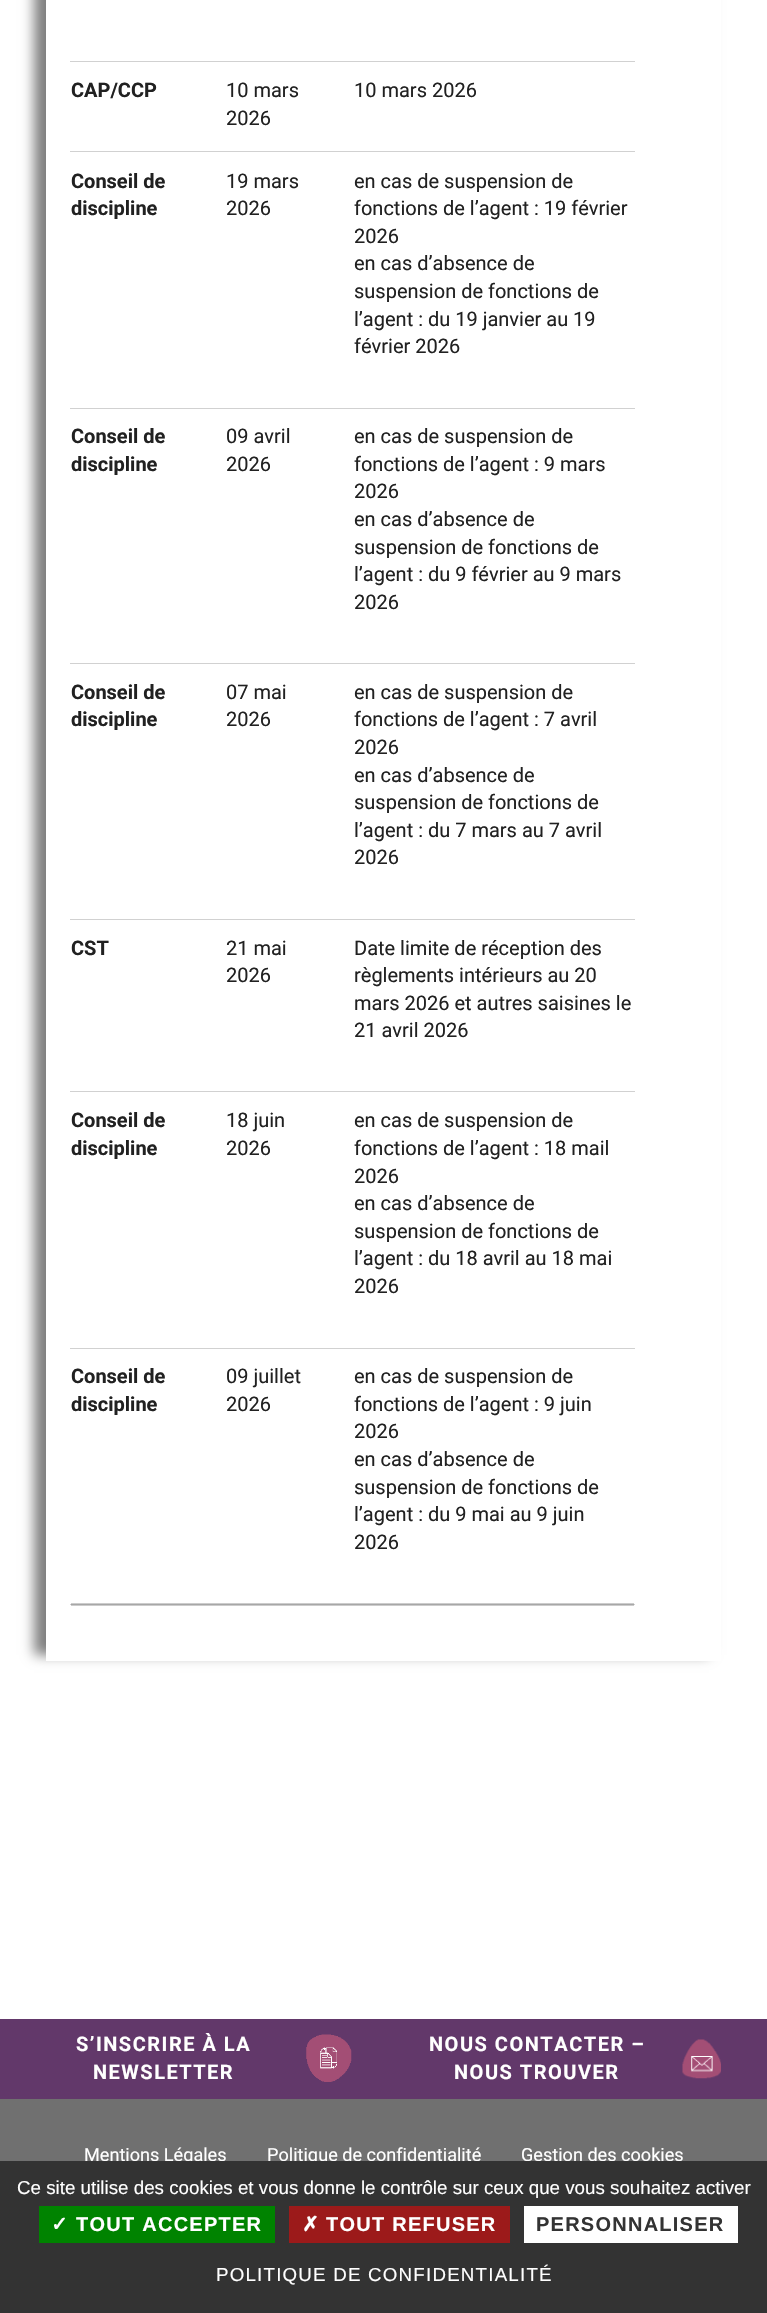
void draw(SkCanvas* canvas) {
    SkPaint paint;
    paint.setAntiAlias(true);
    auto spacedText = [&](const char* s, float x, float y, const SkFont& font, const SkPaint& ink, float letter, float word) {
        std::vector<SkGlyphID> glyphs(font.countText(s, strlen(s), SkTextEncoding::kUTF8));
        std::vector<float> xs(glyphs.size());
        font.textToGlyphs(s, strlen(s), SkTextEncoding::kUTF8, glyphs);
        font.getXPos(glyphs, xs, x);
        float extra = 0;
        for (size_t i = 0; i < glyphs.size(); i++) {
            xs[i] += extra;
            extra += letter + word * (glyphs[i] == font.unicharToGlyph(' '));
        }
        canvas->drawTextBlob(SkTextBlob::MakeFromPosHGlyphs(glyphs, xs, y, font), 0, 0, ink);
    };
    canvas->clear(0xFFFFFFFF);
    paint.setColor(0xFFCCCCCC);
    canvas->drawRect(SkRect::MakeXYWH(71, 1603, 563, 3), paint);
    canvas->save();
    canvas->clipPath(SkPathBuilder(SkPathFillType::kEvenOdd).moveTo(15, 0).lineTo(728, 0).lineTo(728, 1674).lineTo(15, 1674).close().moveTo(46, -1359).lineTo(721, -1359).lineTo(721, 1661).lineTo(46, 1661).close().detach(), true);
    paint.setColor(0x80000000);
    paint.setMaskFilter(SkMaskFilter::MakeBlur(kNormal_SkBlurStyle, 6));
    canvas->drawRect(SkRect::MakeXYWH(34, -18, 675, 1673), paint);
    paint.setMaskFilter(nullptr);
    canvas->restore();
    paint.setColor(0xFFD1D1D1);
    canvas->drawRect(SkRect::MakeXYWH(70, 61, 565, 1), paint);
    SkFont font1(fontMgr->matchFamilyStyle("Roboto", SkFontStyle::Bold()), 20);
    font1.setSubpixel(true);
    paint.setColor(0xFF212121);
    canvas->drawString("CAP/CCP", 71, 97, font1, paint);
    SkFont font2(fontMgr->matchFamilyStyle("Roboto", SkFontStyle::Normal()), 20);
    font2.setSubpixel(true);
    canvas->drawString("10 mars", 226, 97, font2, paint);
    canvas->drawString("2026", 226, 125, font2, paint);
    paint.setColor(0xFFD1D1D1);
    canvas->drawRect(SkRect::MakeXYWH(70, 151, 565, 1), paint);
    paint.setColor(0xFF212121);
    canvas->drawString("10 mars 2026", 354, 97, font2, paint);
    canvas->drawString("Conseil de", 71, 188, font1, paint);
    canvas->drawString("discipline", 71, 215, font1, paint);
    canvas->drawString("19 mars", 226, 188, font2, paint);
    canvas->drawString("2026", 226, 215, font2, paint);
    paint.setColor(0xFFD1D1D1);
    canvas->drawRect(SkRect::MakeXYWH(70, 408, 565, 1), paint);
    paint.setColor(0xFF212121);
    canvas->drawString("en cas de suspension de", 354, 188, font2, paint);
    canvas->drawString("fonctions de l’agent : 19 février", 354, 215, font2, paint);
    canvas->drawString("2026", 354, 243, font2, paint);
    canvas->drawString("en cas d’absence de", 354, 270, font2, paint);
    canvas->drawString("suspension de fonctions de", 354, 298, font2, paint);
    canvas->drawString("l’agent : du 19 janvier au 19", 354, 326, font2, paint);
    canvas->drawString("février 2026", 354, 353, font2, paint);
    canvas->drawString("Conseil de", 71, 443, font1, paint);
    canvas->drawString("discipline", 71, 471, font1, paint);
    canvas->drawString("09 avril", 226, 443, font2, paint);
    canvas->drawString("2026", 226, 471, font2, paint);
    paint.setColor(0xFFD1D1D1);
    canvas->drawRect(SkRect::MakeXYWH(70, 663, 565, 1), paint);
    paint.setColor(0xFF212121);
    canvas->drawString("en cas de suspension de", 354, 443, font2, paint);
    canvas->drawString("fonctions de l’agent : 9 mars", 354, 471, font2, paint);
    canvas->drawString("2026", 354, 498, font2, paint);
    canvas->drawString("en cas d’absence de", 354, 526, font2, paint);
    canvas->drawString("suspension de fonctions de", 354, 554, font2, paint);
    canvas->drawString("l’agent : du 9 février au 9 mars", 354, 581, font2, paint);
    canvas->drawString("2026", 354, 609, font2, paint);
    canvas->drawString("Conseil de", 71, 699, font1, paint);
    canvas->drawString("discipline", 71, 726, font1, paint);
    canvas->drawString("07 mai", 226, 699, font2, paint);
    canvas->drawString("2026", 226, 726, font2, paint);
    paint.setColor(0xFFD1D1D1);
    canvas->drawRect(SkRect::MakeXYWH(70, 919, 565, 1), paint);
    paint.setColor(0xFF212121);
    canvas->drawString("en cas de suspension de", 354, 699, font2, paint);
    canvas->drawString("fonctions de l’agent : 7 avril", 354, 726, font2, paint);
    canvas->drawString("2026", 354, 754, font2, paint);
    canvas->drawString("en cas d’absence de", 354, 782, font2, paint);
    canvas->drawString("suspension de fonctions de", 354, 809, font2, paint);
    canvas->drawString("l’agent : du 7 mars au 7 avril", 354, 837, font2, paint);
    canvas->drawString("2026", 354, 864, font2, paint);
    canvas->drawString("CST", 71, 955, font1, paint);
    canvas->drawString("21 mai", 226, 955, font2, paint);
    canvas->drawString("2026", 226, 982, font2, paint);
    paint.setColor(0xFFD1D1D1);
    canvas->drawRect(SkRect::MakeXYWH(70, 1091, 565, 1), paint);
    paint.setColor(0xFF212121);
    canvas->drawString("Date limite de réception des", 354, 955, font2, paint);
    canvas->drawString("règlements intérieurs au 20", 354, 982, font2, paint);
    canvas->drawString("mars 2026 et autres saisines le", 354, 1010, font2, paint);
    canvas->drawString("21 avril 2026", 354, 1037, font2, paint);
    canvas->drawString("Conseil de", 71, 1127, font1, paint);
    canvas->drawString("discipline", 71, 1155, font1, paint);
    canvas->drawString("18 juin", 226, 1127, font2, paint);
    canvas->drawString("2026", 226, 1155, font2, paint);
    paint.setColor(0xFFD1D1D1);
    canvas->drawRect(SkRect::MakeXYWH(70, 1348, 565, 1), paint);
    paint.setColor(0xFF212121);
    canvas->drawString("en cas de suspension de", 354, 1127, font2, paint);
    canvas->drawString("fonctions de l’agent : 18 mail", 354, 1155, font2, paint);
    canvas->drawString("2026", 354, 1183, font2, paint);
    canvas->drawString("en cas d’absence de", 354, 1210, font2, paint);
    canvas->drawString("suspension de fonctions de", 354, 1238, font2, paint);
    canvas->drawString("l’agent : du 18 avril au 18 mai", 354, 1265, font2, paint);
    canvas->drawString("2026", 354, 1293, font2, paint);
    paint.setColor(0xFFD1D1D1);
    canvas->drawRect(SkRect::MakeXYWH(70, 1604, 1, 1), paint);
    paint.setColor(0xFF212121);
    canvas->drawString("Conseil de", 71, 1383, font1, paint);
    canvas->drawString("discipline", 71, 1411, font1, paint);
    canvas->drawString("09 juillet", 226, 1383, font2, paint);
    canvas->drawString("2026", 226, 1411, font2, paint);
    paint.setColor(0xFFD1D1D1);
    canvas->drawRect(SkRect::MakeXYWH(634, 1604, 1, 1), paint);
    paint.setColor(0xFFA7A7A7);
    canvas->drawRect(SkRect::MakeXYWH(71, 1604, 563, 1), paint);
    paint.setColor(0xFF212121);
    canvas->drawString("en cas de suspension de", 354, 1383, font2, paint);
    canvas->drawString("fonctions de l’agent : 9 juin", 354, 1411, font2, paint);
    canvas->drawString("2026", 354, 1438, font2, paint);
    canvas->drawString("en cas d’absence de", 354, 1466, font2, paint);
    canvas->drawString("suspension de fonctions de", 354, 1494, font2, paint);
    canvas->drawString("l’agent : du 9 mai au 9 juin", 354, 1521, font2, paint);
    canvas->drawString("2026", 354, 1549, font2, paint);
    paint.setColor(0xFF62386A);
    canvas->drawRect(SkRect::MakeXYWH(0, 2019, 767, 80), paint);
    paint.setColor(0xFFFFFFFF);
    spacedText("S’INSCRIRE À LA", 76, 2051, font1, paint, 1.5f, 0);
    spacedText("NEWSLETTER", 93, 2079, font1, paint, 1.5f, 0);
    canvas->drawImageRect(SkImages::DeferredFromEncodedData(SkData::MakeFromFileName("img1.png")), SkRect::MakeXYWH(306, 2034, 46, 48), SkSamplingOptions());
    spacedText("NOUS CONTACTER –", 429, 2051, font1, paint, 1.5f, 0);
    spacedText("NOUS TROUVER", 454, 2079, font1, paint, 1.5f, 0);
    canvas->drawImageRect(SkImages::DeferredFromEncodedData(SkData::MakeFromFileName("img2.png")), SkRect::MakeXYWH(682, 2039, 39, 40), SkSamplingOptions());
    paint.setColor(0xFF707070);
    canvas->drawRect(SkRect::MakeXYWH(0, 2099, 767, 62), paint);
    SkFont font3(fontMgr->matchFamilyStyle("Roboto", SkFontStyle::Normal()), 18.1f);
    font3.setSubpixel(true);
    paint.setColor(0xFFFFFFFF);
    canvas->drawString("Mentions Légales", 84, 2161, font3, paint);
    canvas->drawString("Politique de confidentialité", 267, 2161, font3, paint);
    canvas->drawString("Gestion des cookies", 521, 2161, font3, paint);
    paint.setColor(0xFF333333);
    canvas->drawRect(SkRect::MakeXYWH(0, 2161, 767, 152), paint);
    SkFont font4(fontMgr->matchFamilyStyle("Liberation Sans", SkFontStyle::Normal()), 18.75f);
    font4.setSubpixel(true);
    paint.setColor(0xFFFFFFFF);
    canvas->drawString("Ce site utilise des cookies et vous donne le contrôle sur ceux que vous souhaitez activer", 17, 2194, font4, paint);
    paint.setColor(0xFF008300);
    canvas->drawRect(SkRect::MakeXYWH(39, 2206, 236, 37), paint);
    SkFont font5(fontMgr->matchFamilyStyle("DejaVu Sans", SkFontStyle::Bold()), 20);
    font5.setSubpixel(true);
    paint.setColor(0xFFFFFFFF);
    spacedText("✓", 51, 2231, font5, paint, 1.25f, 0);
    SkFont font6(fontMgr->matchFamilyStyle("Liberation Sans", SkFontStyle::Bold()), 20);
    font6.setSubpixel(true);
    spacedText("TOUT ACCEPTER", 76, 2231, font6, paint, 1.25f, 0);
    paint.setColor(0xFF9C1A1A);
    canvas->drawRect(SkRect::MakeXYWH(289, 2206, 221, 37), paint);
    paint.setColor(0xFFFFFFFF);
    spacedText("✗", 302, 2231, font5, paint, 1.25f, 0);
    spacedText("TOUT REFUSER", 326, 2231, font6, paint, 1.25f, 0);
    canvas->drawRect(SkRect::MakeXYWH(524, 2206, 214, 37), paint);
    paint.setColor(0xFF333333);
    spacedText("PERSONNALISER", 536, 2231, font6, paint, 1.25f, 0);
    paint.setColor(0xFFFFFFFF);
    spacedText("POLITIQUE DE CONFIDENTIALITÉ", 216, 2281, font4, paint, 1.2f, 0);
}
